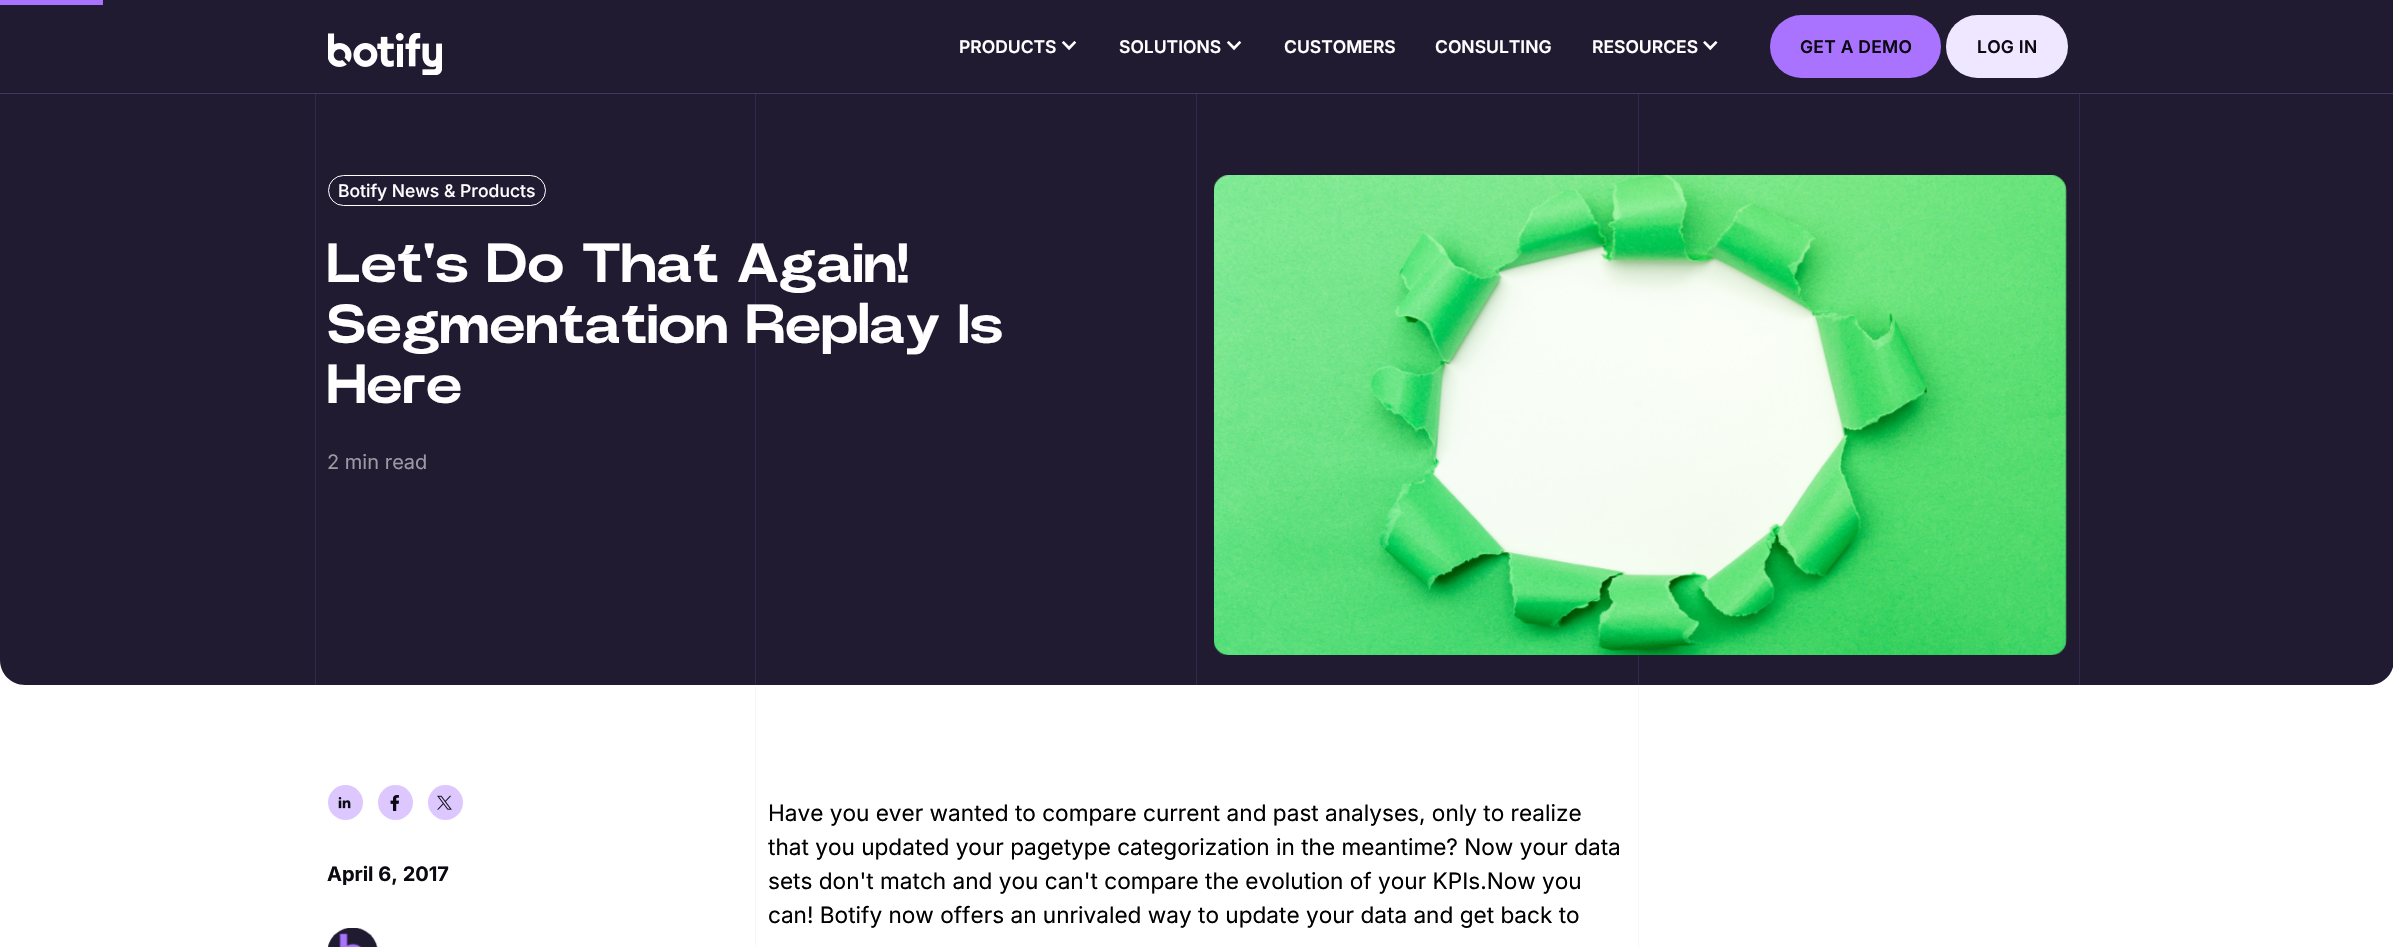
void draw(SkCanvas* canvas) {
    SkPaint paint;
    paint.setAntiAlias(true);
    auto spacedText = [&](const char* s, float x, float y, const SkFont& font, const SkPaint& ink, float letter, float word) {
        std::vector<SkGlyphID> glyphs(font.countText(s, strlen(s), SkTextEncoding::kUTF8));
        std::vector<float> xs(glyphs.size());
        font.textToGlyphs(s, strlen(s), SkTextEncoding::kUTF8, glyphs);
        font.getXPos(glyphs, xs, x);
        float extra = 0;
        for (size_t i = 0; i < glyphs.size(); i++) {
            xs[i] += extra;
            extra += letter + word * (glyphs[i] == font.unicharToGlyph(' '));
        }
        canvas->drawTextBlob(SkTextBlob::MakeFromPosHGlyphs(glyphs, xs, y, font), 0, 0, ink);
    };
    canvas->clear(0xFFFFFFFF);
    paint.setColor(0xFF211B32);
    canvas->drawPath(SkPathBuilder().moveTo(0, -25).lineTo(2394, -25).lineTo(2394, 660).cubicTo(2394, 674, 2383, 685, 2369, 685).lineTo(25, 685).cubicTo(11, 685, 0, 674, 0, 660).close().detach(), paint);
    paint.setColor(0xFFA973FF);
    canvas->drawRect(SkRect::MakeXYWH(0, 0, 103, 5), paint);
    paint.setColor(0xFF423766);
    canvas->drawRect(SkRect::MakeXYWH(0, 93, 2393, 1), paint);
    canvas->drawImageRect(SkImages::DeferredFromEncodedData(SkData::MakeFromFileName("img1.png")), SkRect::MakeXYWH(328, 33, 114, 42), SkSamplingOptions());
    SkFont font1(fontMgr->matchFamilyStyle("Inter", SkFontStyle(600, SkFontStyle::kNormal_Width, SkFontStyle::kUpright_Slant)), 17.5f);
    font1.setSubpixel(true);
    paint.setColor(0xFFFFFFFF);
    canvas->drawString("PRODUCTS", 959, 53, font1, paint);
    canvas->drawImageRect(SkImages::DeferredFromEncodedData(SkData::MakeFromFileName("img2.png")), SkRect::MakeXYWH(1061, 41, 16, 10), SkSamplingOptions());
    canvas->drawString("SOLUTIONS", 1119, 53, font1, paint);
    canvas->drawImageRect(SkImages::DeferredFromEncodedData(SkData::MakeFromFileName("img2.png")), SkRect::MakeXYWH(1226, 41, 16, 10), SkSamplingOptions());
    canvas->drawString("CUSTOMERS", 1284, 53, font1, paint);
    canvas->drawString("CONSULTING", 1435, 53, font1, paint);
    canvas->drawString("RESOURCES", 1592, 53, font1, paint);
    canvas->drawImageRect(SkImages::DeferredFromEncodedData(SkData::MakeFromFileName("img3.png")), SkRect::MakeXYWH(1703, 41, 15, 10), SkSamplingOptions());
    paint.setColor(0xFFA973FF);
    canvas->drawRoundRect(SkRect::MakeXYWH(1770, 15, 171, 63), 31.5f, 31.5f, paint);
    paint.setColor(0xFF0B0911);
    spacedText("GET A DEMO", 1800, 53, font1, paint, 0.25f, 0);
    paint.setColor(0xFFEFE6FF);
    canvas->drawRoundRect(SkRect::MakeXYWH(1946, 15, 122, 63), 31.5f, 31.5f, paint);
    paint.setColor(0xFF0B0911);
    spacedText("LOG IN", 1977, 53, font1, paint, 0.25f, 0);
    paint.setColor(0xFF32294C);
    canvas->drawRect(SkRect::MakeXYWH(755, 94, 1, 591), paint);
    canvas->drawRect(SkRect::MakeXYWH(315, 94, 1, 591), paint);
    canvas->drawRect(SkRect::MakeXYWH(1196, 94, 1, 591), paint);
    canvas->drawRect(SkRect::MakeXYWH(1638, 94, 1, 591), paint);
    canvas->drawRect(SkRect::MakeXYWH(2079, 94, 1, 591), paint);
    paint.setStyle(SkPaint::kStroke_Style);
    paint.setStrokeWidth(1);
    paint.setColor(0xFFFFFFFF);
    canvas->drawRoundRect(SkRect::MakeXYWH(328.5f, 175.5f, 217, 30), 15, 15, paint);
    SkFont font2(fontMgr->matchFamilyStyle("Inter", SkFontStyle(500, SkFontStyle::kNormal_Width, SkFontStyle::kUpright_Slant)), 17.5f);
    font2.setSubpixel(true);
    paint.setStyle(SkPaint::kFill_Style);
    canvas->drawString("Botify News & Products", 338, 197, font2, paint);
    SkFont font3(fontMgr->matchFamilyStyle("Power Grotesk", SkFontStyle::Bold()), 55);
    font3.setSubpixel(true);
    canvas->drawString("Let's Do That Again!", 327, 282, font3, paint);
    canvas->drawString("Segmentation Replay Is", 327, 343, font3, paint);
    canvas->drawString("Here", 327, 403, font3, paint);
    SkFont font4(fontMgr->matchFamilyStyle("Inter", SkFontStyle::Normal()), 20);
    font4.setSubpixel(true);
    paint.setColor(0xFF9C99A3);
    canvas->drawString("2 min read", 327, 469, font4, paint);
    canvas->drawImageRect(SkImages::DeferredFromEncodedData(SkData::MakeFromFileName("img4.png")), SkRect::MakeXYWH(1214, 175, 853, 480), SkSamplingOptions());
    paint.setColor(0xFFF7F7F7);
    canvas->drawRect(SkRect::MakeXYWH(755, 685, 1, 262), paint);
    canvas->drawRect(SkRect::MakeXYWH(1638, 685, 1, 262), paint);
    paint.setColor(0xFFDDC7FF);
    canvas->drawCircle(345.5f, 802.5f, 17.5f, paint);
    canvas->drawImageRect(SkImages::DeferredFromEncodedData(SkData::MakeFromFileName("img5.png")), SkRect::MakeXYWH(338, 797, 13, 12), SkSamplingOptions());
    canvas->drawCircle(395.5f, 802.5f, 17.5f, paint);
    canvas->drawImageRect(SkImages::DeferredFromEncodedData(SkData::MakeFromFileName("img6.png")), SkRect::MakeXYWH(390, 795, 9, 16), SkSamplingOptions());
    canvas->drawCircle(445.5f, 802.5f, 17.5f, paint);
    canvas->drawImageRect(SkImages::DeferredFromEncodedData(SkData::MakeFromFileName("img7.png")), SkRect::MakeXYWH(437, 795, 15, 15), SkSamplingOptions());
    SkFont font5(fontMgr->matchFamilyStyle("Inter", SkFontStyle::Bold()), 20);
    font5.setSubpixel(true);
    paint.setColor(0xFF0B0911);
    canvas->drawString("April 6, 2017", 327, 881, font5, paint);
    canvas->drawImageRect(SkImages::DeferredFromEncodedData(SkData::MakeFromFileName("img8.png")), SkRect::MakeXYWH(327, 928, 51, 19), SkSamplingOptions());
    canvas->drawImageRect(SkImages::DeferredFromEncodedData(SkData::MakeFromFileName("img9.png")), SkRect::MakeXYWH(328, 928, 50, 19), SkSamplingOptions());
    SkFont font6(fontMgr->matchFamilyStyle("Inter", SkFontStyle::Normal()), 22.6f);
    font6.setSubpixel(true);
    paint.setColor(0xFF000000);
    canvas->drawString("Have you ever wanted to compare current and past analyses, only to realize", 768, 821, font6, paint);
    canvas->drawString("that you updated your pagetype categorization in the meantime? Now your data", 768, 855, font6, paint);
    canvas->drawString("sets don't match and you can't compare the evolution of your KPIs.Now you", 768, 889, font6, paint);
    canvas->drawString("can! Botify now offers an unrivaled way to update your data and get back to", 768, 923, font6, paint);
}
